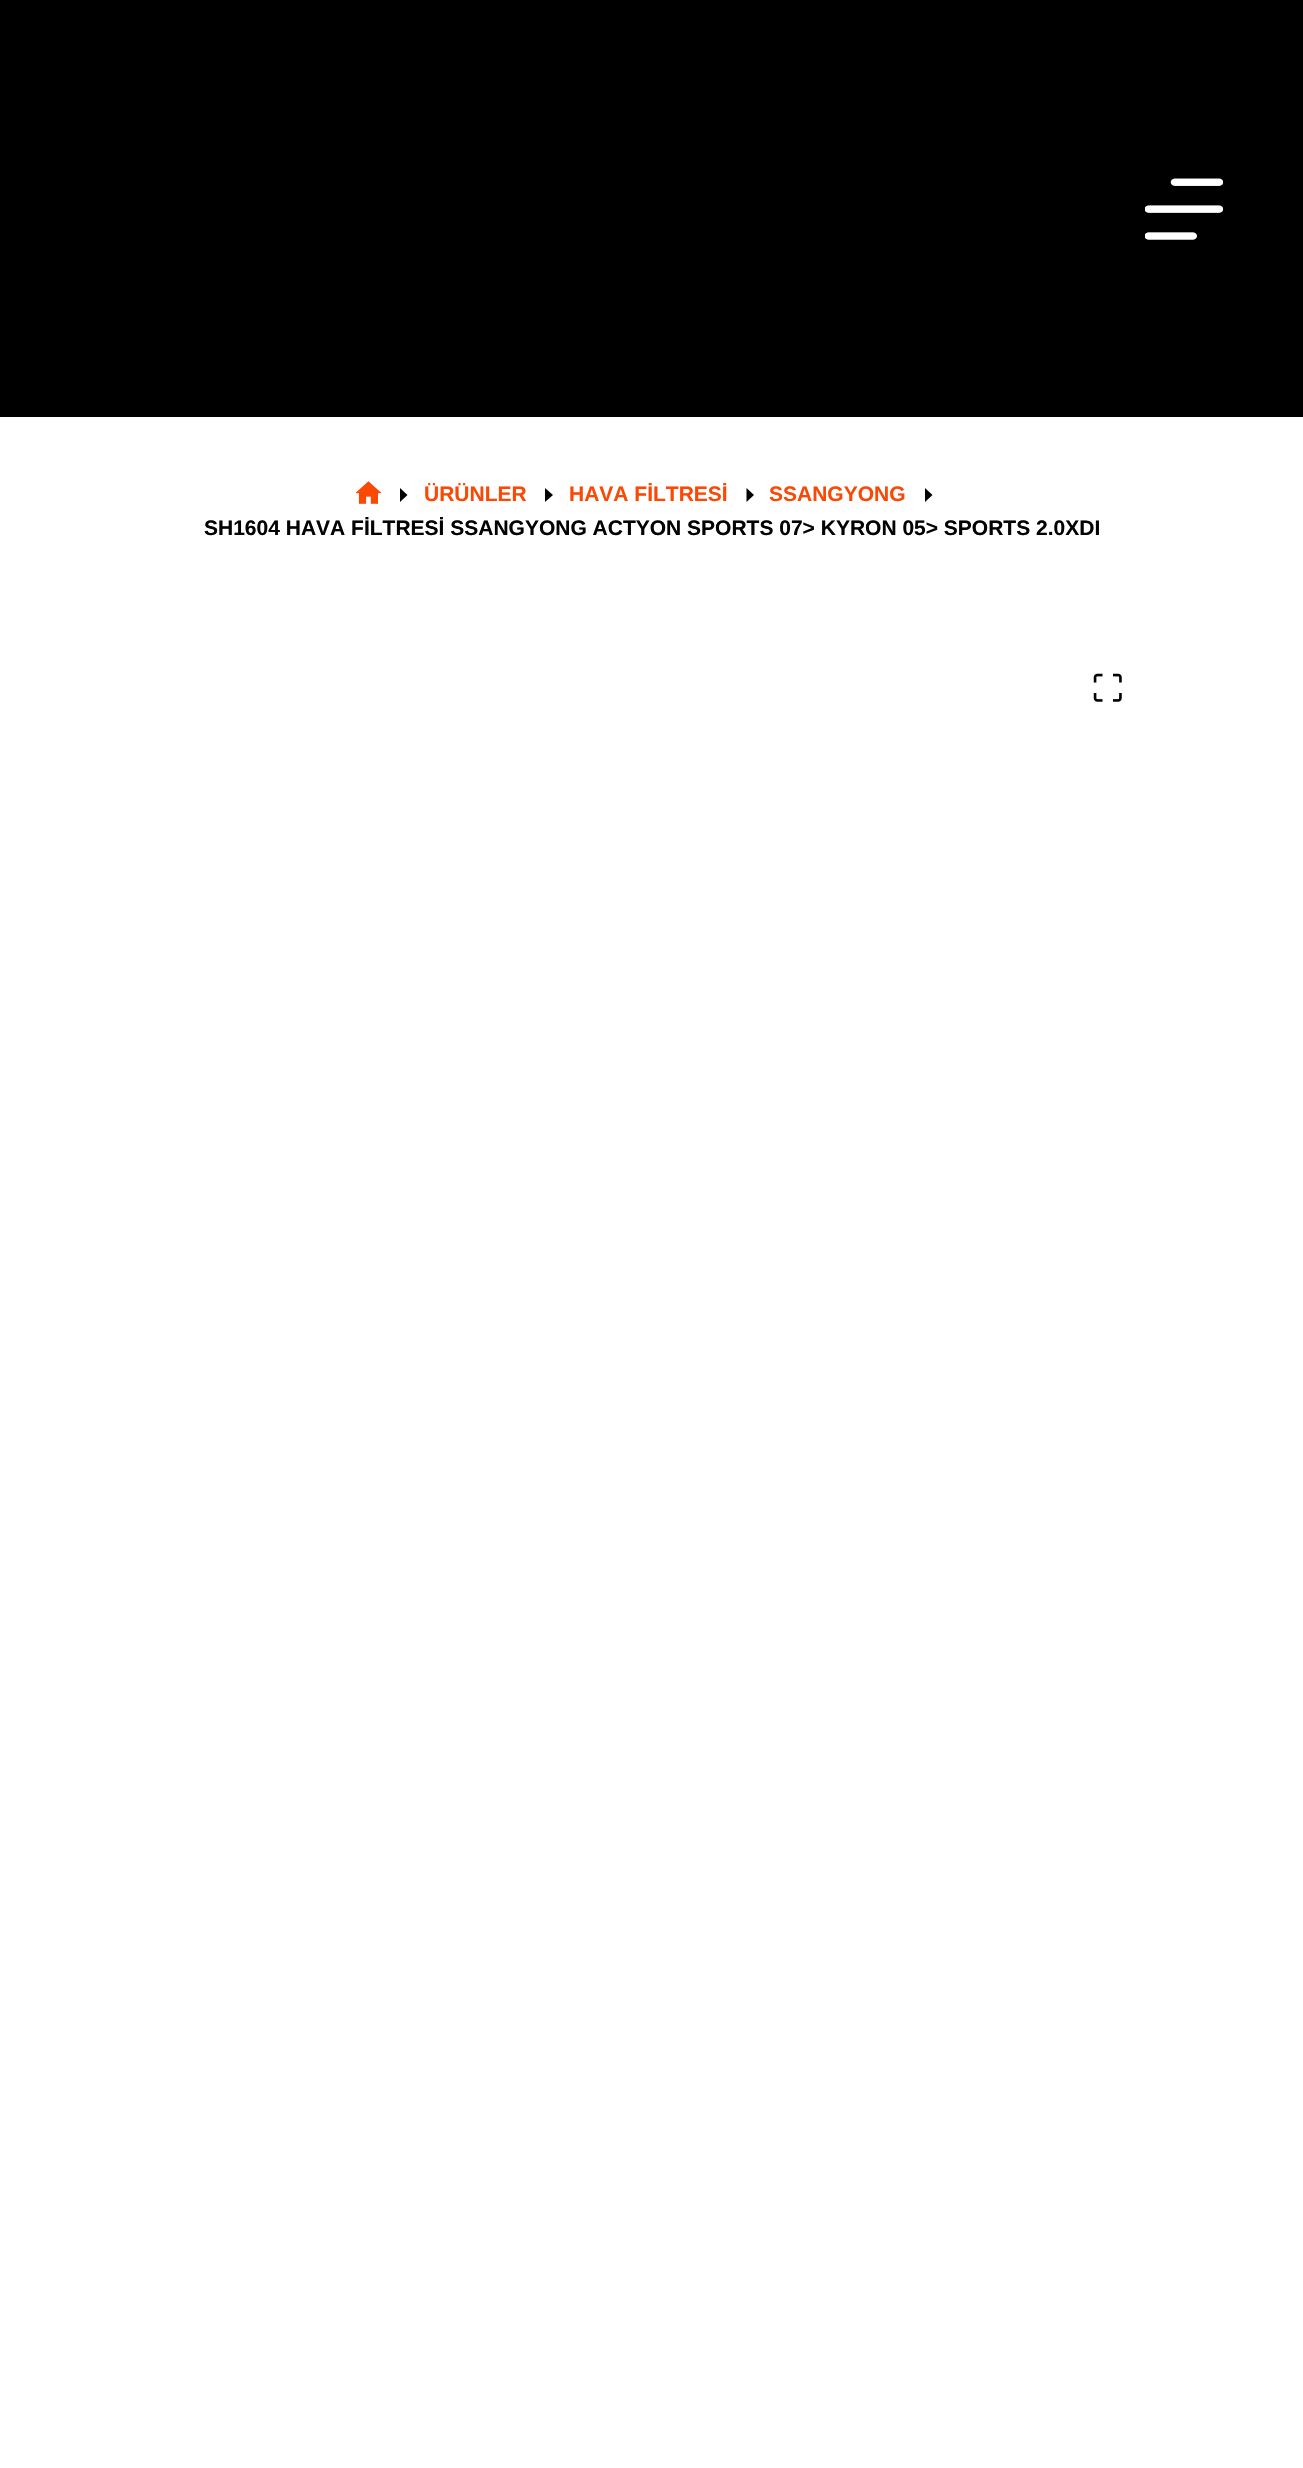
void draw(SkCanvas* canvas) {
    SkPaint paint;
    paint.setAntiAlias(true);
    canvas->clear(0xFFFFFFFF);
    paint.setColor(0xFF000000);
    canvas->drawRect(SkRect::MakeXYWH(0, 0, 1303, 417), paint);
    canvas->drawImageRect(SkImages::DeferredFromEncodedData(SkData::MakeFromFileName("img1.png")), SkRect::MakeXYWH(1145, 178, 78, 62), SkSamplingOptions());
    canvas->drawImageRect(SkImages::DeferredFromEncodedData(SkData::MakeFromFileName("img2.png")), SkRect::MakeXYWH(355, 481, 27, 23), SkSamplingOptions());
    paint.setColor(0xFF020202);
    canvas->drawPath(SkPathBuilder().moveTo(400, 488).lineTo(407.5f, 495).lineTo(400, 502).close().detach(), paint);
    SkFont font1(fontMgr->matchFamilyStyle("Liberation Sans", SkFontStyle::Bold()), 21);
    font1.setSubpixel(true);
    paint.setColor(0xFFFA4805);
    canvas->drawString("ÜRÜNLER", 424, 501, font1, paint);
    paint.setColor(0xFF020202);
    canvas->drawPath(SkPathBuilder().moveTo(545, 488).lineTo(553, 495).lineTo(545, 502).close().detach(), paint);
    paint.setColor(0xFFFA4805);
    canvas->drawString("HAVA FİLTRESİ", 569, 501, font1, paint);
    paint.setColor(0xFF020202);
    canvas->drawPath(SkPathBuilder().moveTo(746.5f, 488).lineTo(754, 495).lineTo(746.5f, 502).close().detach(), paint);
    paint.setColor(0xFFFA4805);
    canvas->drawString("SSANGYONG", 769, 501, font1, paint);
    paint.setColor(0xFF020202);
    canvas->drawPath(SkPathBuilder().moveTo(925, 488).lineTo(932.5f, 495).lineTo(925, 502).close().detach(), paint);
    canvas->drawString("SH1604 HAVA FİLTRESİ SSANGYONG ACTYON SPORTS 07> KYRON 05> SPORTS 2.0XDI", 204, 535, font1, paint);
    canvas->drawImageRect(SkImages::DeferredFromEncodedData(SkData::MakeFromFileName("img3.png")), SkRect::MakeXYWH(1093, 673, 29, 29), SkSamplingOptions());
}
